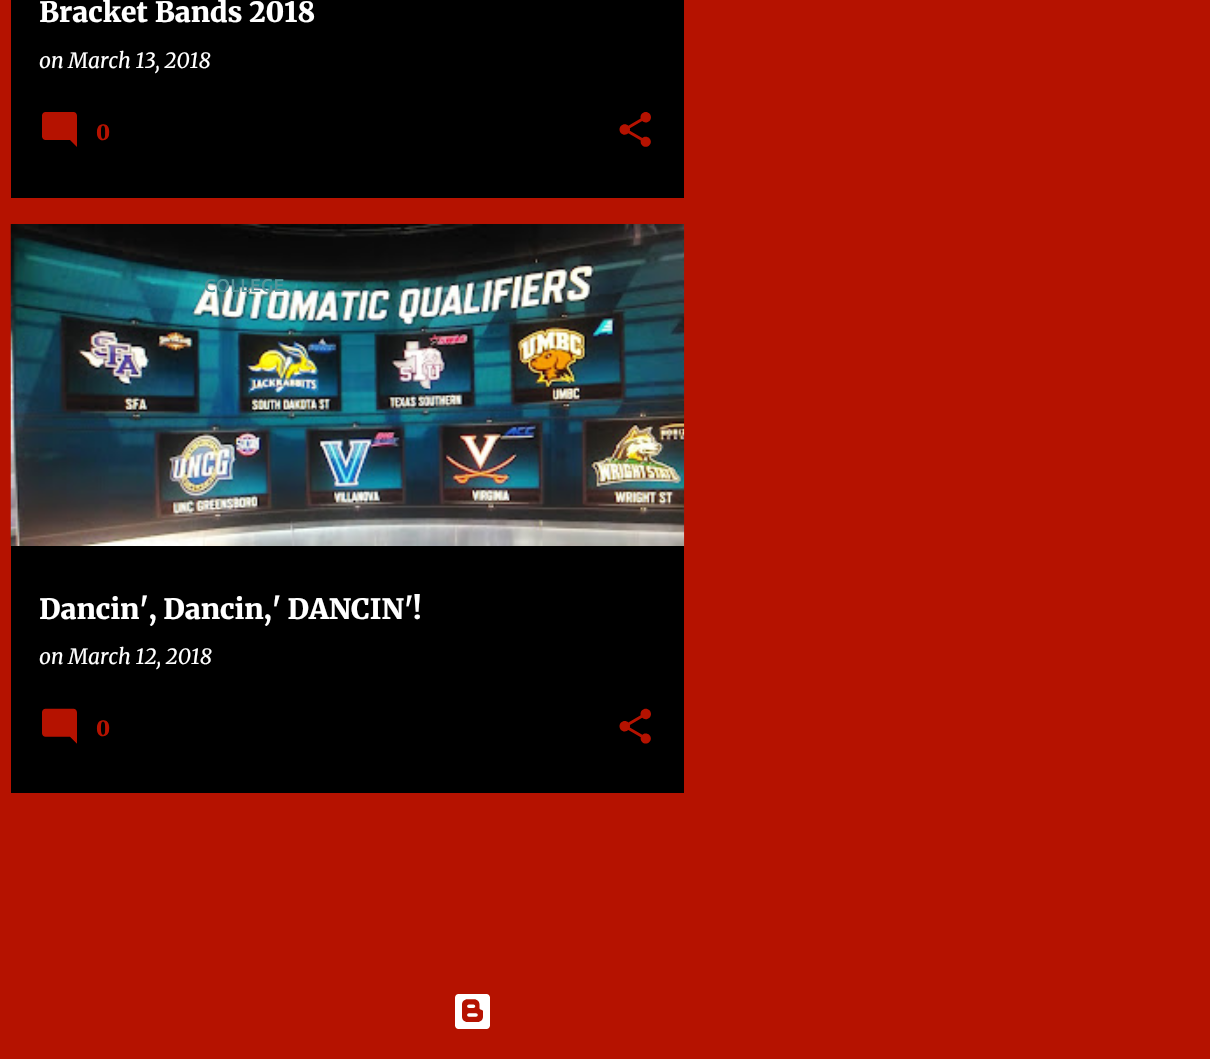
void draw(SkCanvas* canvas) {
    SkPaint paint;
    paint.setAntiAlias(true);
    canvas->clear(0xFFB51200);
    paint.setColor(0xFF000000);
    canvas->drawRect(SkRect::MakeXYWH(11, 0, 673, 198), paint);
    SkFont font1(fontMgr->matchFamilyStyle("Merriweather", SkFontStyle(900, SkFontStyle::kNormal_Width, SkFontStyle::kUpright_Slant)), 28);
    font1.setSubpixel(true);
    paint.setColor(0xFFFFFFFF);
    canvas->drawString("Bracket Bands 2018", 39, 22, font1, paint);
    SkFont font2(fontMgr->matchFamilyStyle("Merriweather", SkFontStyle(300, SkFontStyle::kNormal_Width, SkFontStyle::kItalic_Slant)), 21);
    font2.setSubpixel(true);
    canvas->drawString("on March 13, 2018", 39, 68, font2, paint);
    canvas->drawImageRect(SkImages::DeferredFromEncodedData(SkData::MakeFromFileName("img1.png")), SkRect::MakeXYWH(42, 112, 35, 35), SkSamplingOptions());
    SkFont font3(fontMgr->matchFamilyStyle("Merriweather", SkFontStyle(900, SkFontStyle::kNormal_Width, SkFontStyle::kUpright_Slant)), 21);
    font3.setSubpixel(true);
    paint.setColor(0xFFB51200);
    canvas->drawString("0", 96, 140, font3, paint);
    canvas->drawImageRect(SkImages::DeferredFromEncodedData(SkData::MakeFromFileName("img2.png")), SkRect::MakeXYWH(619, 112, 32, 35), SkSamplingOptions());
    paint.setColor(0xFF000000);
    canvas->drawRect(SkRect::MakeXYWH(11, 546, 673, 247), paint);
    canvas->drawImageRect(SkImages::DeferredFromEncodedData(SkData::MakeFromFileName("img3.png")), SkRect::MakeXYWH(10, 224, 675, 322), SkSamplingOptions());
    SkFont font4(fontMgr->matchFamilyStyle("Ubuntu", SkFontStyle(500, SkFontStyle::kNormal_Width, SkFontStyle::kUpright_Slant)), 18.5f);
    font4.setSubpixel(true);
    paint.setColor(0xFF559499);
    canvas->drawString("COLLEGE", 204, 292, font4, paint);
    paint.setColor(0xFFFFFFFF);
    canvas->drawString("on March 12, 2018", 39, 664, font2, paint);
    canvas->drawString("Dancin', Dancin,' DANCIN'!", 39, 619, font1, paint);
    canvas->drawImageRect(SkImages::DeferredFromEncodedData(SkData::MakeFromFileName("img4.png")), SkRect::MakeXYWH(42, 708, 35, 36), SkSamplingOptions());
    paint.setColor(0xFFB51200);
    canvas->drawString("0", 96, 736, font3, paint);
    canvas->drawImageRect(SkImages::DeferredFromEncodedData(SkData::MakeFromFileName("img5.png")), SkRect::MakeXYWH(619, 708, 32, 36), SkSamplingOptions());
    canvas->drawImageRect(SkImages::DeferredFromEncodedData(SkData::MakeFromFileName("img6.png")), SkRect::MakeXYWH(455, 994, 35, 35), SkSamplingOptions());
}
